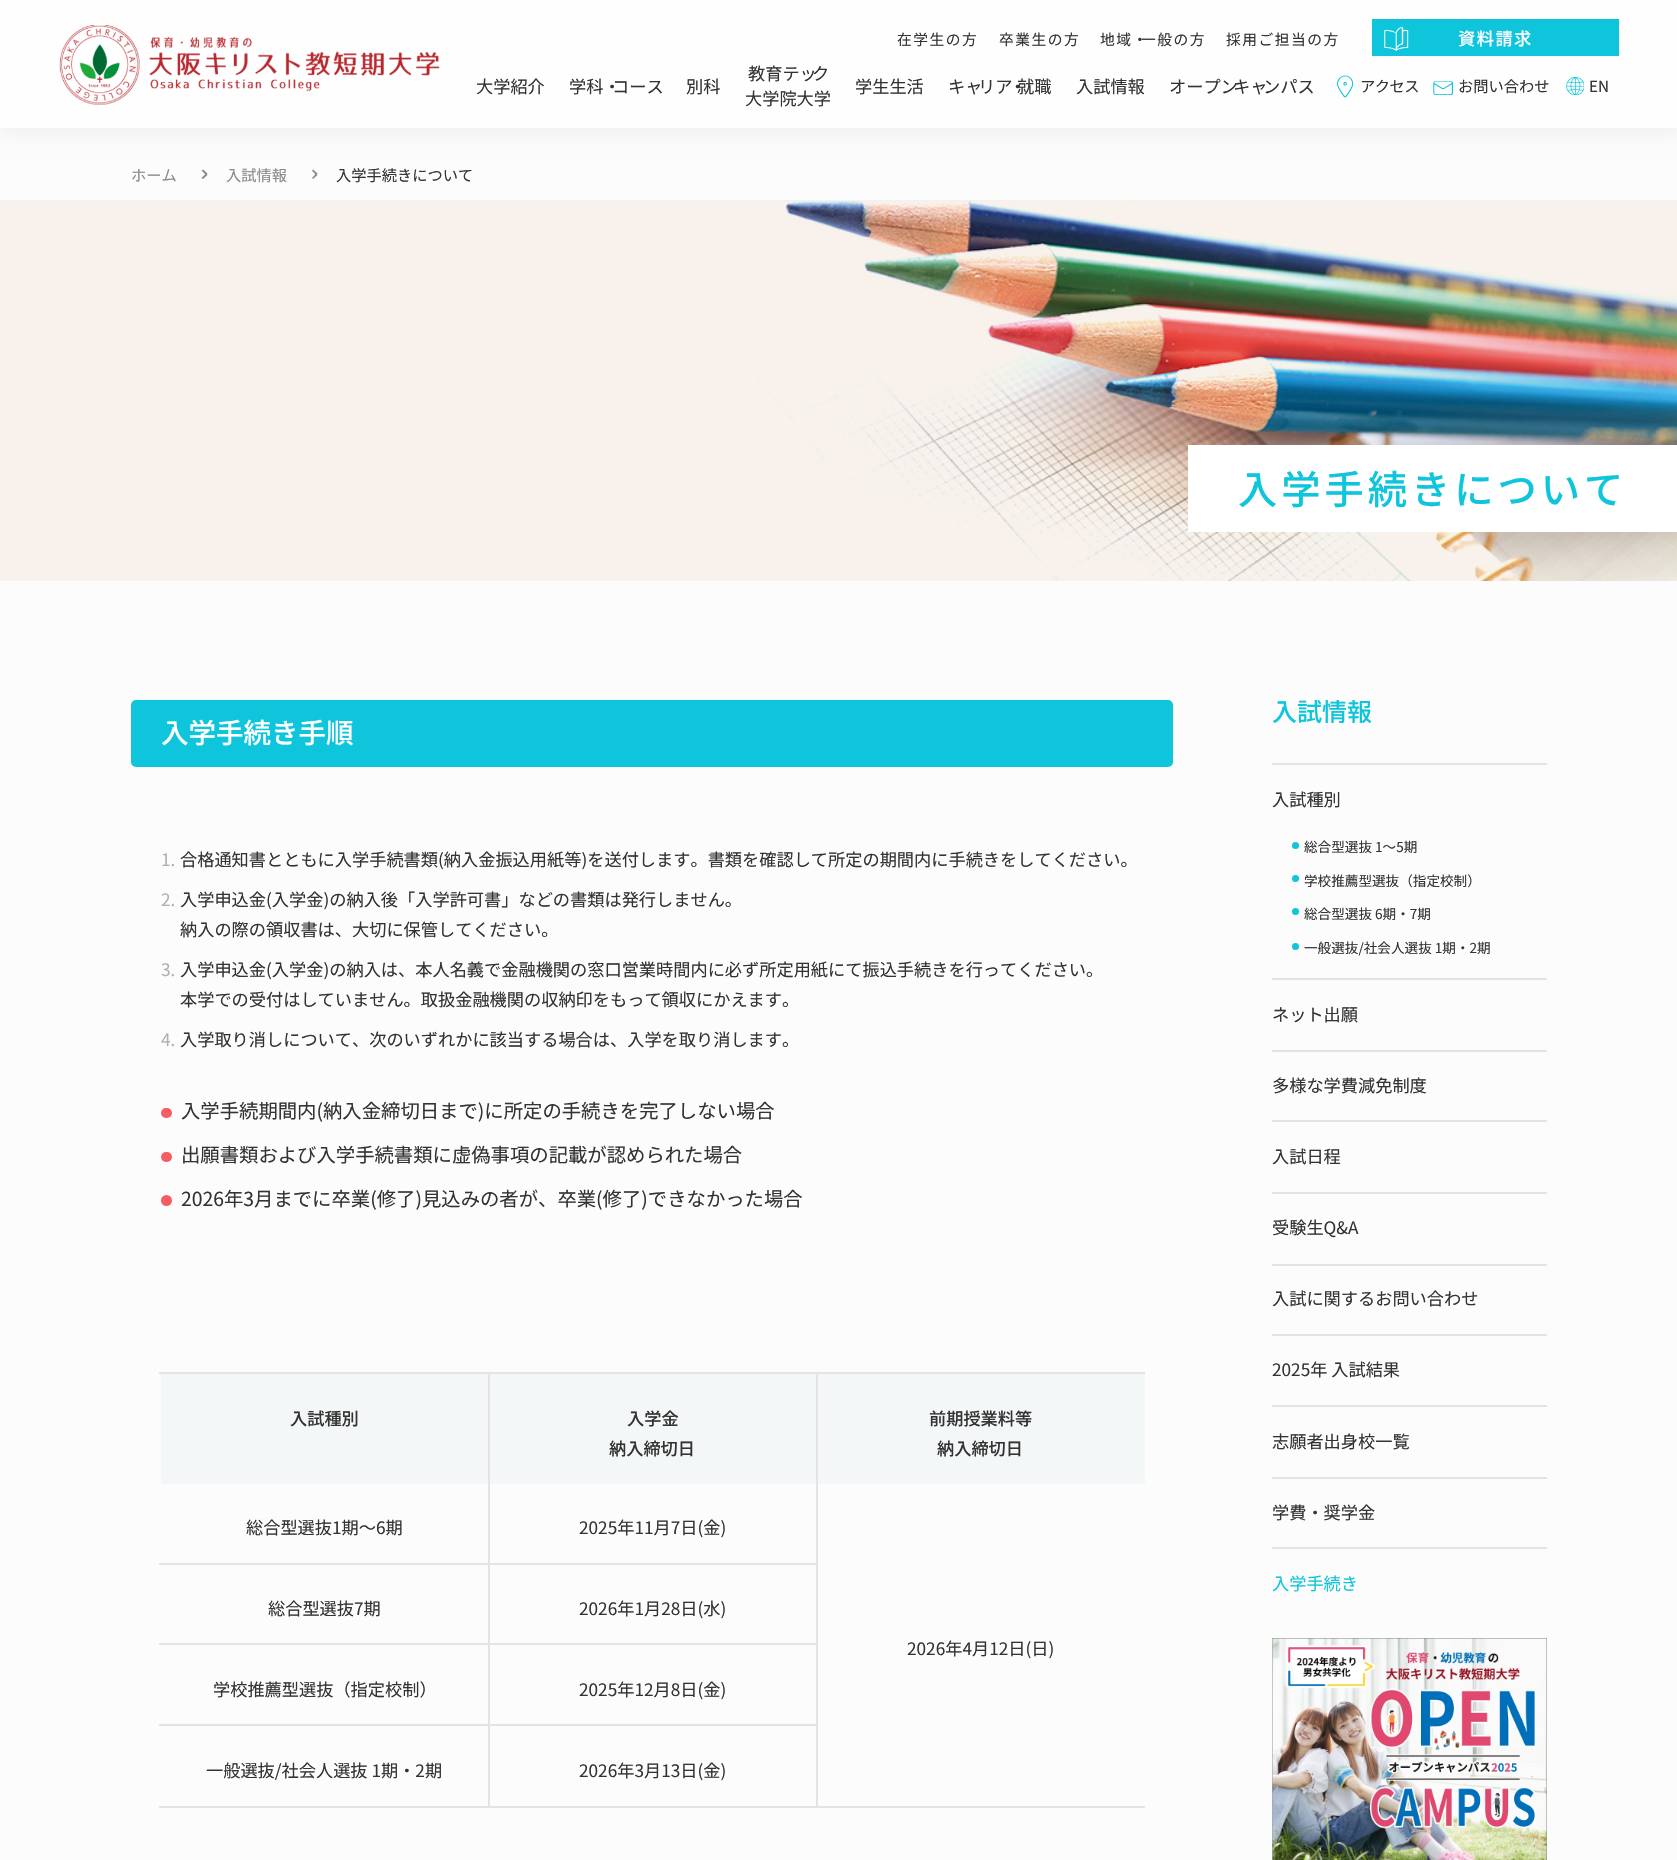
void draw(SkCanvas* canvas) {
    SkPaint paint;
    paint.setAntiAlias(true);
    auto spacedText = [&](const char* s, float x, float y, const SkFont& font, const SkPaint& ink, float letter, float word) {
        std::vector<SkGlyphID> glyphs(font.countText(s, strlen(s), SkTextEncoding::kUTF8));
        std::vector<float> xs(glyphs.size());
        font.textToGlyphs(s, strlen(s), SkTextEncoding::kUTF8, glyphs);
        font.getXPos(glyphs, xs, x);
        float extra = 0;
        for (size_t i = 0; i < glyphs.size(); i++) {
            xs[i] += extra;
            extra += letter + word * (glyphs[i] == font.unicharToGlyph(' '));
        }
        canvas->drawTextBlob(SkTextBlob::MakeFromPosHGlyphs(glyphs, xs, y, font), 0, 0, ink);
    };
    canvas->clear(0xFFFCFCFC);
    paint.setColor(0x0D000000);
    paint.setMaskFilter(SkMaskFilter::MakeBlur(kNormal_SkBlurStyle, 9));
    canvas->drawRect(SkRect::MakeXYWH(0, 5, 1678, 128), paint);
    paint.setMaskFilter(nullptr);
    paint.setColor(0xFFFEFEFE);
    canvas->drawRect(SkRect::MakeXYWH(0, 0, 1677, 128), paint);
    canvas->drawImageRect(SkImages::DeferredFromEncodedData(SkData::MakeFromFileName("img1.png")), SkRect::MakeXYWH(59, 25, 381, 80), SkSamplingOptions());
    SkFont font1(fontMgr->matchFamilyStyle("Noto Sans JP", SkFontStyle::Normal()), 14.75f);
    font1.setSubpixel(true);
    paint.setColor(0xFF333333);
    spacedText("在学生の方", 897, 45, font1, paint, 1.5f, 0);
    spacedText("卒業生の方", 999, 45, font1, paint, 1.5f, 0);
    spacedText("地域・", 1100, 45, font1, paint, 1.5f, 0);
    spacedText("一般の方", 1141, 45, font1, paint, 1.5f, 0);
    spacedText("採用ご担当の方", 1226, 45, font1, paint, 1.5f, 0);
    paint.setColor(0xFF0FC5DB);
    canvas->drawRect(SkRect::MakeXYWH(1372, 19, 247, 37), paint);
    canvas->drawImageRect(SkImages::DeferredFromEncodedData(SkData::MakeFromFileName("img2.png")), SkRect::MakeXYWH(1384, 27, 25, 24), SkSamplingOptions());
    SkFont font2(fontMgr->matchFamilyStyle("Noto Sans JP", SkFontStyle(500, SkFontStyle::kNormal_Width, SkFontStyle::kUpright_Slant)), 17.2f);
    font2.setSubpixel(true);
    paint.setColor(0xFFFFFFFF);
    spacedText("資料請求", 1458, 45, font2, paint, 1.5f, 0);
    SkFont font3(fontMgr->matchFamilyStyle("Noto Sans JP", SkFontStyle::Normal()), 17.2f);
    font3.setSubpixel(true);
    paint.setColor(0xFF333333);
    canvas->drawString("大学紹介", 476, 93, font3, paint);
    canvas->drawString("学科・", 569, 93, font3, paint);
    canvas->drawString("コース", 612, 93, font3, paint);
    canvas->drawString("別科", 686, 93, font3, paint);
    canvas->drawString("教育テッ", 748, 80, font3, paint);
    canvas->drawString("ク", 812, 80, font3, paint);
    canvas->drawString("大学院大学", 745, 105, font3, paint);
    canvas->drawString("学生生活", 855, 93, font3, paint);
    canvas->drawString("キャ", 948, 93, font3, paint);
    canvas->drawString("リア", 978, 93, font3, paint);
    canvas->drawString("・", 1009, 93, font3, paint);
    canvas->drawString("就職", 1017, 93, font3, paint);
    canvas->drawString("入試情報", 1076, 93, font3, paint);
    canvas->drawString("オープン", 1169, 93, font3, paint);
    canvas->drawString("キャ", 1233, 93, font3, paint);
    canvas->drawString("ンパス", 1263, 93, font3, paint);
    canvas->drawImageRect(SkImages::DeferredFromEncodedData(SkData::MakeFromFileName("img3.png")), SkRect::MakeXYWH(1337, 75, 16, 23), SkSamplingOptions());
    SkFont font4(fontMgr->matchFamilyStyle("Noto Sans JP", SkFontStyle::Normal()), 15.25f);
    font4.setSubpixel(true);
    spacedText("アクセス", 1360, 92, font4, paint, -0.5f, 0);
    canvas->drawImageRect(SkImages::DeferredFromEncodedData(SkData::MakeFromFileName("img4.png")), SkRect::MakeXYWH(1433, 81, 20, 14), SkSamplingOptions());
    canvas->drawString("お問い合わせ", 1458, 92, font4, paint);
    canvas->drawImageRect(SkImages::DeferredFromEncodedData(SkData::MakeFromFileName("img5.png")), SkRect::MakeXYWH(1566, 77, 18, 18), SkSamplingOptions());
    canvas->drawString("EN", 1589, 92, font4, paint);
    paint.setColor(0xFFF1F1F1);
    canvas->drawRect(SkRect::MakeXYWH(0, 200, 1677, 2), paint);
    paint.setColor(0xFF888888);
    canvas->drawString("ホーム", 131, 181, font4, paint);
    canvas->drawPath(SkPathBuilder().moveTo(203, 169.5f).lineTo(207.5f, 173.5f).lineTo(206, 175).lineTo(201.5f, 170.5f).close().detach(), paint);
    canvas->drawPath(SkPathBuilder().moveTo(201.5f, 178).lineTo(206, 173.5f).lineTo(207.5f, 175).lineTo(203, 179).close().detach(), paint);
    canvas->drawString("入試情報", 226, 181, font4, paint);
    canvas->drawPath(SkPathBuilder().moveTo(313, 169.5f).lineTo(317.5f, 173.5f).lineTo(316, 175).lineTo(312, 170.5f).close().detach(), paint);
    canvas->drawPath(SkPathBuilder().moveTo(312, 178).lineTo(316, 173.5f).lineTo(317.5f, 175).lineTo(313, 179).close().detach(), paint);
    paint.setColor(0xFF333333);
    canvas->drawString("入学手続きについて", 336, 181, font4, paint);
    canvas->drawImageRect(SkImages::DeferredFromEncodedData(SkData::MakeFromFileName("img6.png")), SkRect::MakeXYWH(0, 201, 1677, 380), SkSamplingOptions());
    paint.setColor(0xFFFFFFFF);
    canvas->drawRect(SkRect::MakeXYWH(1188, 445, 489, 87), paint);
    SkFont font5(fontMgr->matchFamilyStyle("Noto Sans JP", SkFontStyle(500, SkFontStyle::kNormal_Width, SkFontStyle::kUpright_Slant)), 39.25f);
    font5.setSubpixel(true);
    paint.setColor(0xFF0FC5DB);
    spacedText("入学手続きについて", 1238, 504, font5, paint, 4, 0);
    canvas->drawRoundRect(SkRect::MakeXYWH(131, 700, 1042, 67), 5, 5, paint);
    SkFont font6(fontMgr->matchFamilyStyle("Noto Sans JP", SkFontStyle(500, SkFontStyle::kNormal_Width, SkFontStyle::kUpright_Slant)), 27.5f);
    font6.setSubpixel(true);
    paint.setColor(0xFFFFFFFF);
    canvas->drawString("入学手続き手順", 161, 743, font6, paint);
    paint.setColor(0xFFB0B0B0);
    canvas->drawString("1.", 161, 866, font3, paint);
    paint.setColor(0xFF333333);
    canvas->drawString("合格通知書とともに入学手続書類(納入金振込用紙等)を送付します。書類を確認して所定の期間内に手続きをしてください。", 180, 866, font3, paint);
    paint.setColor(0xFFB0B0B0);
    canvas->drawString("2.", 161, 906, font3, paint);
    paint.setColor(0xFF333333);
    canvas->drawString("入学申込金(入学金)の納入後「入学許可書」などの書類は発行しません。", 180, 906, font3, paint);
    canvas->drawString("納入の際の領収書は、大切に保管してください。", 180, 936, font3, paint);
    paint.setColor(0xFFB0B0B0);
    canvas->drawString("3.", 161, 976, font3, paint);
    paint.setColor(0xFF333333);
    canvas->drawString("入学申込金(入学金)の納入は、本人名義で金融機関の窓口営業時間内に必ず所定用紙にて振込手続きを行ってください。", 180, 976, font3, paint);
    canvas->drawString("本学での受付はしていません。取扱金融機関の収納印をもって領収にかえます。", 180, 1006, font3, paint);
    paint.setColor(0xFFB0B0B0);
    canvas->drawString("4.", 161, 1046, font3, paint);
    paint.setColor(0xFF333333);
    canvas->drawString("入学取り消しについて、次のいずれかに該当する場合は、入学を取り消します。", 180, 1046, font3, paint);
    paint.setColor(0xFFF65C62);
    canvas->drawRoundRect(SkRect::MakeXYWH(161, 1108, 11, 10), 5, 5, paint);
    SkFont font7(fontMgr->matchFamilyStyle("Noto Sans JP", SkFontStyle::Normal()), 19.35f);
    font7.setSubpixel(true);
    paint.setColor(0xFF333333);
    canvas->drawString("入学手続期間内(納入金締切日まで)に所定の手続きを完了しない場合", 181, 1118, font7, paint);
    paint.setColor(0xFFF65C62);
    canvas->drawRoundRect(SkRect::MakeXYWH(161, 1152, 11, 10), 5, 5, paint);
    paint.setColor(0xFF333333);
    canvas->drawString("出願書類および入学手続書類に虚偽事項の記載が認められた場合", 181, 1162, font7, paint);
    paint.setColor(0xFFF65C62);
    canvas->drawCircle(166.5f, 1200.5f, 5.5f, paint);
    paint.setColor(0xFF333333);
    canvas->drawString("2026年3月までに卒業(修了)見込みの者が、卒業(修了)できなかった場合", 181, 1206, font7, paint);
    paint.setColor(0xFFF4F7F8);
    canvas->drawRect(SkRect::MakeXYWH(161, 1374, 327, 110), paint);
    paint.setColor(0xFFE4E4E4);
    canvas->drawRect(SkRect::MakeXYWH(816, 1372, 329, 2), paint);
    canvas->drawRect(SkRect::MakeXYWH(488, 1806, 657, 2), paint);
    canvas->drawRect(SkRect::MakeXYWH(488, 1724, 2, 84), paint);
    canvas->drawRect(SkRect::MakeXYWH(488, 1724, 329, 2), paint);
    canvas->drawRect(SkRect::MakeXYWH(488, 1643, 2, 83), paint);
    canvas->drawRect(SkRect::MakeXYWH(488, 1643, 329, 2), paint);
    canvas->drawRect(SkRect::MakeXYWH(816, 1482, 2, 326), paint);
    canvas->drawRect(SkRect::MakeXYWH(816, 1372, 2, 112), paint);
    canvas->drawRect(SkRect::MakeXYWH(488, 1372, 329, 2), paint);
    canvas->drawRect(SkRect::MakeXYWH(488, 1563, 2, 82), paint);
    canvas->drawRect(SkRect::MakeXYWH(488, 1563, 329, 2), paint);
    canvas->drawRect(SkRect::MakeXYWH(488, 1482, 2, 83), paint);
    canvas->drawRect(SkRect::MakeXYWH(488, 1372, 2, 112), paint);
    canvas->drawRect(SkRect::MakeXYWH(159, 1372, 331, 2), paint);
    paint.setColor(0xFF333333);
    canvas->drawString("入試種別", 290, 1425, font2, paint);
    paint.setColor(0xFFF4F7F8);
    canvas->drawRect(SkRect::MakeXYWH(490, 1374, 326, 110), paint);
    paint.setColor(0xFF333333);
    canvas->drawString("入学金", 627, 1425, font2, paint);
    canvas->drawString("納入締切日", 609, 1455, font2, paint);
    paint.setColor(0xFFF4F7F8);
    canvas->drawRect(SkRect::MakeXYWH(818, 1374, 327, 110), paint);
    paint.setColor(0xFF333333);
    canvas->drawString("前期授業料等", 929, 1425, font2, paint);
    canvas->drawString("納入締切日", 937, 1455, font2, paint);
    paint.setColor(0xFFE4E4E4);
    canvas->drawRect(SkRect::MakeXYWH(159, 1563, 331, 2), paint);
    paint.setColor(0xFF333333);
    canvas->drawString("総合型選抜1期～6期", 246, 1534, font3, paint);
    canvas->drawString("2025年11月7日(金)", 579, 1534, font3, paint);
    canvas->drawString("2026年4月12日(日)", 907, 1655, font3, paint);
    paint.setColor(0xFFE4E4E4);
    canvas->drawRect(SkRect::MakeXYWH(159, 1643, 331, 2), paint);
    paint.setColor(0xFF333333);
    canvas->drawString("総合型選抜7期", 268, 1615, font3, paint);
    canvas->drawString("2026年1月28日(水)", 579, 1615, font3, paint);
    paint.setColor(0xFFE4E4E4);
    canvas->drawRect(SkRect::MakeXYWH(159, 1724, 331, 2), paint);
    paint.setColor(0xFF333333);
    canvas->drawString("学校推薦型選抜（指定校制）", 213, 1696, font3, paint);
    canvas->drawString("2025年12月8日(金)", 579, 1696, font3, paint);
    paint.setColor(0xFFE4E4E4);
    canvas->drawRect(SkRect::MakeXYWH(159, 1806, 331, 2), paint);
    paint.setColor(0xFF333333);
    canvas->drawString("一般選抜/社会人選抜 1期・2期", 206, 1777, font3, paint);
    canvas->drawString("2026年3月13日(金)", 579, 1777, font3, paint);
    SkFont font8(fontMgr->matchFamilyStyle("Noto Sans JP", SkFontStyle(500, SkFontStyle::kNormal_Width, SkFontStyle::kUpright_Slant)), 25);
    font8.setSubpixel(true);
    paint.setColor(0xFF0FC5DB);
    canvas->drawString("入試情報", 1272, 721, font8, paint);
    paint.setColor(0xFFE4E4E4);
    canvas->drawRect(SkRect::MakeXYWH(1272, 763, 275, 2), paint);
    paint.setColor(0xFF333333);
    canvas->drawString("入試種別", 1272, 806, font3, paint);
    paint.setColor(0xFF0FC5DB);
    canvas->drawCircle(1295.5f, 845.5f, 3.5f, paint);
    SkFont font9(fontMgr->matchFamilyStyle("Noto Sans JP", SkFontStyle::Normal()), 13.6f);
    font9.setSubpixel(true);
    paint.setColor(0xFF333333);
    canvas->drawString("総合型選抜 1〜5期", 1304, 852, font9, paint);
    paint.setColor(0xFF0FC5DB);
    canvas->drawCircle(1295.5f, 878.5f, 3.5f, paint);
    paint.setColor(0xFF333333);
    canvas->drawString("学校推薦型選抜（指定校制）", 1304, 886, font9, paint);
    paint.setColor(0xFF0FC5DB);
    canvas->drawCircle(1295.5f, 911.5f, 3.5f, paint);
    paint.setColor(0xFF333333);
    canvas->drawString("総合型選抜 6期・7期", 1304, 919, font9, paint);
    paint.setColor(0xFF0FC5DB);
    canvas->drawCircle(1295.5f, 946.5f, 3.5f, paint);
    paint.setColor(0xFF333333);
    canvas->drawString("一般選抜/社会人選抜 1期・2期", 1304, 953, font9, paint);
    paint.setColor(0xFFE4E4E4);
    canvas->drawRect(SkRect::MakeXYWH(1272, 978, 275, 2), paint);
    paint.setColor(0xFF333333);
    canvas->drawString("ネット出願", 1272, 1021, font3, paint);
    paint.setColor(0xFFE4E4E4);
    canvas->drawRect(SkRect::MakeXYWH(1272, 1050, 275, 2), paint);
    paint.setColor(0xFF333333);
    canvas->drawString("多様な学費減免制度", 1272, 1092, font3, paint);
    paint.setColor(0xFFE4E4E4);
    canvas->drawRect(SkRect::MakeXYWH(1272, 1120, 275, 2), paint);
    paint.setColor(0xFF333333);
    canvas->drawString("入試日程", 1272, 1163, font3, paint);
    paint.setColor(0xFFE4E4E4);
    canvas->drawRect(SkRect::MakeXYWH(1272, 1192, 275, 2), paint);
    paint.setColor(0xFF333333);
    canvas->drawString("受験生Q&A", 1272, 1234, font3, paint);
    paint.setColor(0xFFE4E4E4);
    canvas->drawRect(SkRect::MakeXYWH(1272, 1264, 275, 2), paint);
    paint.setColor(0xFF333333);
    canvas->drawString("入試に関するお問い合わせ", 1272, 1305, font3, paint);
    paint.setColor(0xFFE4E4E4);
    canvas->drawRect(SkRect::MakeXYWH(1272, 1334, 275, 2), paint);
    paint.setColor(0xFF333333);
    canvas->drawString("2025年 入試結果", 1272, 1376, font3, paint);
    paint.setColor(0xFFE4E4E4);
    canvas->drawRect(SkRect::MakeXYWH(1272, 1405, 275, 2), paint);
    paint.setColor(0xFF333333);
    canvas->drawString("志願者出身校一覧", 1272, 1448, font3, paint);
    paint.setColor(0xFFE4E4E4);
    canvas->drawRect(SkRect::MakeXYWH(1272, 1477, 275, 2), paint);
    paint.setColor(0xFF333333);
    canvas->drawString("学費・奨学金", 1272, 1519, font3, paint);
    paint.setColor(0xFFE4E4E4);
    canvas->drawRect(SkRect::MakeXYWH(1272, 1547, 275, 2), paint);
    paint.setColor(0xFF0FC5DB);
    canvas->drawString("入学手続き", 1272, 1590, font3, paint);
    canvas->drawImageRect(SkImages::DeferredFromEncodedData(SkData::MakeFromFileName("img7.png")), SkRect::MakeXYWH(1272, 1638, 275, 222), SkSamplingOptions());
}
